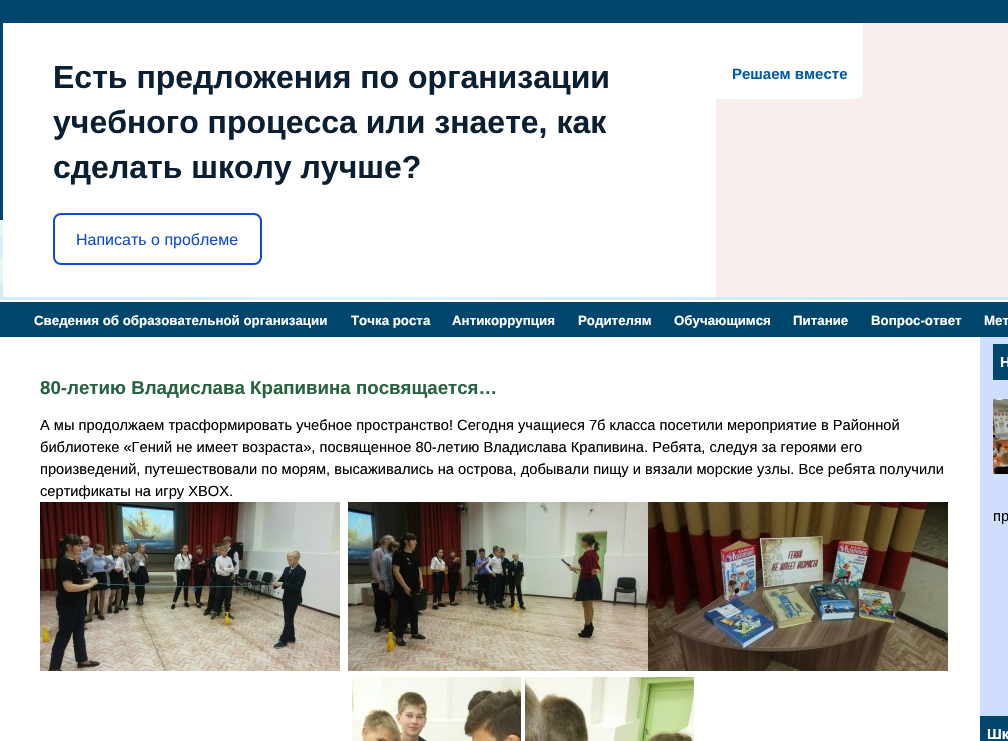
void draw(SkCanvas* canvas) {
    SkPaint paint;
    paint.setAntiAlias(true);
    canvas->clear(0xFFFFFFFF);
    canvas->drawImageRect(SkImages::DeferredFromEncodedData(SkData::MakeFromFileName("img1.png")), SkRect::MakeXYWH(0, 220, 1008, 80), SkSamplingOptions());
    paint.setColor(0xFF00456B);
    canvas->drawRect(SkRect::MakeXYWH(0, 0, 1008, 220), paint);
    paint.setColor(0xFFFFFFFF);
    canvas->drawRect(SkRect::MakeXYWH(3, 23, 713, 274), paint);
    SkFont font1(fontMgr->matchFamilyStyle("Liberation Sans", SkFontStyle::Bold()), 32);
    font1.setSubpixel(true);
    paint.setColor(0xFF0B1F33);
    canvas->drawString("Есть предложения по организации", 53, 88, font1, paint);
    canvas->drawString("учебного процесса или знаете, как", 53, 133, font1, paint);
    canvas->drawString("сделать школу лучше?", 53, 178, font1, paint);
    paint.setStyle(SkPaint::kStroke_Style);
    paint.setStrokeWidth(2);
    paint.setColor(0xFF0D4CD3);
    canvas->drawRoundRect(SkRect::MakeXYWH(54, 214, 207, 50), 7, 7, paint);
    SkFont font2(fontMgr->matchFamilyStyle("Liberation Sans", SkFontStyle::Normal()), 16);
    font2.setSubpixel(true);
    paint.setStyle(SkPaint::kFill_Style);
    canvas->drawString("Написать о проблеме", 76, 245, font2, paint);
    paint.setColor(0xFFF8EFEC);
    canvas->drawRect(SkRect::MakeXYWH(716, 23, 292, 274), paint);
    paint.setColor(0xFFFFFFFF);
    canvas->drawPath(SkPathBuilder().moveTo(716, 23).lineTo(863, 23).lineTo(863, 91).cubicTo(863, 95.5f, 859.5f, 99, 855, 99).lineTo(716, 99).close().detach(), paint);
    SkFont font3(fontMgr->matchFamilyStyle("Liberation Sans", SkFontStyle::Bold()), 15);
    font3.setSubpixel(true);
    paint.setColor(0xFF005CA9);
    canvas->drawString("Решаем вместе", 732, 79, font3, paint);
    paint.setColor(0xFF00456B);
    canvas->drawRect(SkRect::MakeXYWH(0, 302, 1008, 35), paint);
    SkFont font4(fontMgr->matchFamilyStyle("Liberation Sans", SkFontStyle::Bold()), 13.3f);
    font4.setSubpixel(true);
    paint.setColor(0xFFFFFFFF);
    canvas->drawString("Сведения об образовательной организации", 34, 325, font4, paint);
    canvas->drawString("Точка роста", 351, 325, font4, paint);
    canvas->drawString("Антикоррупция", 452, 325, font4, paint);
    canvas->drawString("Родителям", 578, 325, font4, paint);
    canvas->drawString("Обучающимся", 674, 325, font4, paint);
    canvas->drawString("Питание", 793, 325, font4, paint);
    canvas->drawString("Вопрос-ответ", 871, 325, font4, paint);
    canvas->drawString("Мет", 984, 325, font4, paint);
    SkFont font5(fontMgr->matchFamilyStyle("Liberation Sans", SkFontStyle::Bold()), 18.7f);
    font5.setSubpixel(true);
    paint.setColor(0xFF276341);
    canvas->drawString("80-летию Владислава Крапивина посвящается…", 40, 394, font5, paint);
    SkFont font6(fontMgr->matchFamilyStyle("Liberation Sans", SkFontStyle::Normal()), 14.67f);
    font6.setSubpixel(true);
    paint.setColor(0xFF000000);
    canvas->drawString("А мы продолжаем трасформировать учебное пространство! Сегодня учащиеся 7б класса посетили мероприятие в Районной", 40, 430, font6, paint);
    canvas->drawString("библиотеке «Гений не имеет возраста», посвященное 80-летию Владислава Крапивина. Ребята, следуя за героями его", 40, 452, font6, paint);
    canvas->drawString("произведений, путешествовали по морям, высаживались на острова, добывали пищу и вязали морские узлы. Все ребята получили", 40, 474, font6, paint);
    canvas->drawString("сертификаты на игру XBOX.", 40, 496, font6, paint);
    canvas->drawImageRect(SkImages::DeferredFromEncodedData(SkData::MakeFromFileName("img2.png")), SkRect::MakeXYWH(40, 502, 300, 169), SkSamplingOptions());
    canvas->drawImageRect(SkImages::DeferredFromEncodedData(SkData::MakeFromFileName("img3.png")), SkRect::MakeXYWH(348, 502, 300, 169), SkSamplingOptions());
    canvas->drawImageRect(SkImages::DeferredFromEncodedData(SkData::MakeFromFileName("img4.png")), SkRect::MakeXYWH(648, 502, 300, 169), SkSamplingOptions());
    canvas->drawImageRect(SkImages::DeferredFromEncodedData(SkData::MakeFromFileName("img5.png")), SkRect::MakeXYWH(352, 677, 169, 64), SkSamplingOptions());
    canvas->drawImageRect(SkImages::DeferredFromEncodedData(SkData::MakeFromFileName("img6.png")), SkRect::MakeXYWH(525, 677, 169, 64), SkSamplingOptions());
    paint.setColor(0xFFCFDEFC);
    canvas->drawRect(SkRect::MakeXYWH(980, 337, 28, 379), paint);
    paint.setColor(0xFF00456B);
    canvas->drawRect(SkRect::MakeXYWH(993, 344, 15, 36), paint);
    SkFont font7(fontMgr->matchFamilyStyle("Liberation Sans", SkFontStyle::Bold()), 14.67f);
    font7.setSubpixel(true);
    paint.setColor(0xFFFFFFFF);
    canvas->drawString("Н", 1000, 367, font7, paint);
    canvas->drawImageRect(SkImages::DeferredFromEncodedData(SkData::MakeFromFileName("img7.png")), SkRect::MakeXYWH(993, 399, 15, 75), SkSamplingOptions());
    paint.setColor(0xFF000000);
    canvas->drawString("пр", 993, 521, font6, paint);
    paint.setColor(0xFF00456B);
    canvas->drawRect(SkRect::MakeXYWH(980, 716, 28, 25), paint);
    paint.setColor(0xFFFFFFFF);
    canvas->drawString("Шк", 987, 739, font7, paint);
}
